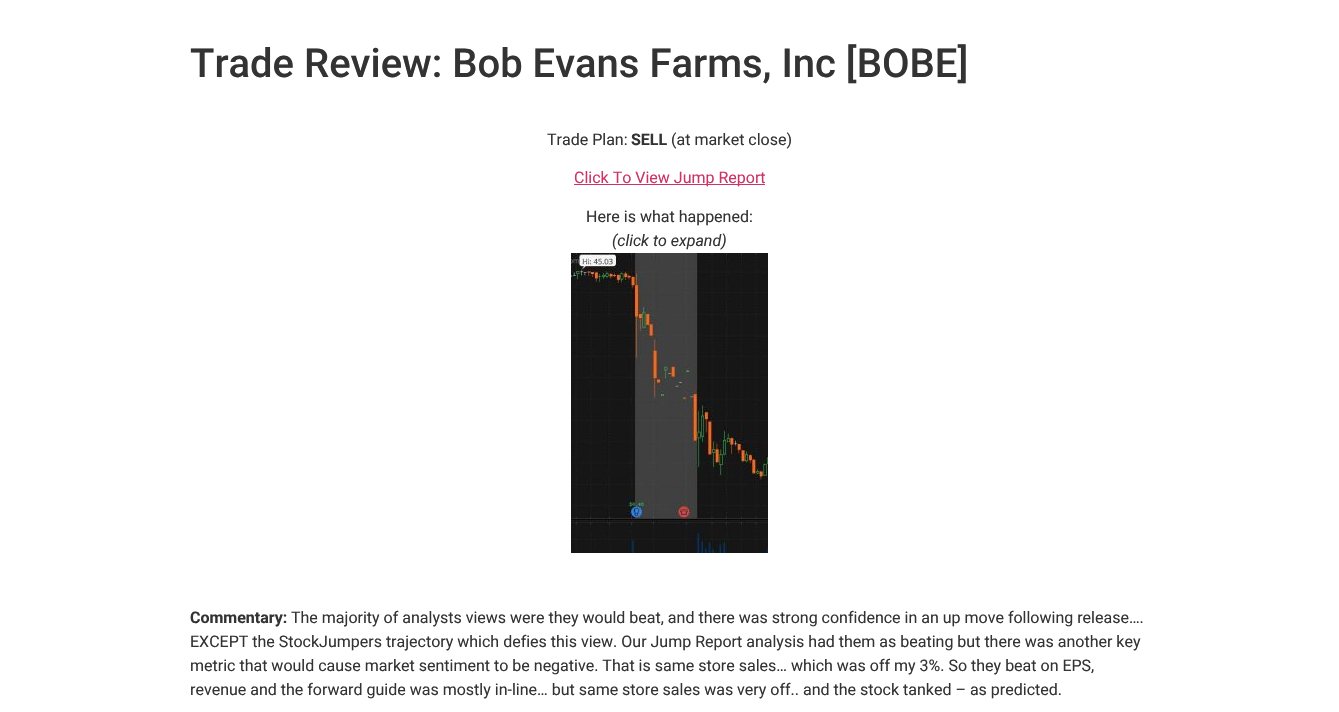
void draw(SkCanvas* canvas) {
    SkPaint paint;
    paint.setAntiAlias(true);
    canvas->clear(0xFFFFFFFF);
    SkFont font1(fontMgr->matchFamilyStyle("Roboto", SkFontStyle(500, SkFontStyle::kNormal_Width, SkFontStyle::kUpright_Slant)), 40);
    font1.setSubpixel(true);
    paint.setColor(0xFF333333);
    canvas->drawString("Trade Review: Bob Evans Farms, Inc [BOBE]", 190, 77, font1, paint);
    SkFont font2(fontMgr->matchFamilyStyle("Roboto", SkFontStyle::Normal()), 16);
    font2.setSubpixel(true);
    canvas->drawString("Trade Plan:", 547, 145, font2, paint);
    SkFont font3(fontMgr->matchFamilyStyle("Roboto", SkFontStyle::Bold()), 16);
    font3.setSubpixel(true);
    canvas->drawString("SELL", 631, 145, font3, paint);
    canvas->drawString("(at market close)", 671, 145, font2, paint);
    paint.setColor(0xFFCC3366);
    canvas->drawRect(SkRect::MakeXYWH(574, 184, 191, 1), paint);
    canvas->drawString("Click To View Jump Report", 574, 183, font2, paint);
    paint.setColor(0xFF333333);
    canvas->drawString("Here is what happened:", 586, 222, font2, paint);
    SkFont font4(fontMgr->matchFamilyStyle("Roboto", SkFontStyle::Italic()), 16);
    font4.setSubpixel(true);
    canvas->drawString("(click to expand)", 612, 246, font4, paint);
    canvas->drawImageRect(SkImages::DeferredFromEncodedData(SkData::MakeFromFileName("img1.png")), SkRect::MakeXYWH(571, 253, 197, 300), SkSamplingOptions());
    canvas->drawString("Commentary:", 190, 623, font3, paint);
    canvas->drawString("The majority of analysts views were they would beat, and there was strong confidence in an up move following release….", 291, 623, font2, paint);
    canvas->drawString("EXCEPT the StockJumpers trajectory which defies this view. Our Jump Report analysis had them as beating but there was another key", 190, 647, font2, paint);
    canvas->drawString("metric that would cause market sentiment to be negative. That is same store sales… which was off my 3%. So they beat on EPS,", 190, 671, font2, paint);
    canvas->drawString("revenue and the forward guide was mostly in-line… but same store sales was very off.. and the stock tanked – as predicted.", 190, 695, font2, paint);
}
